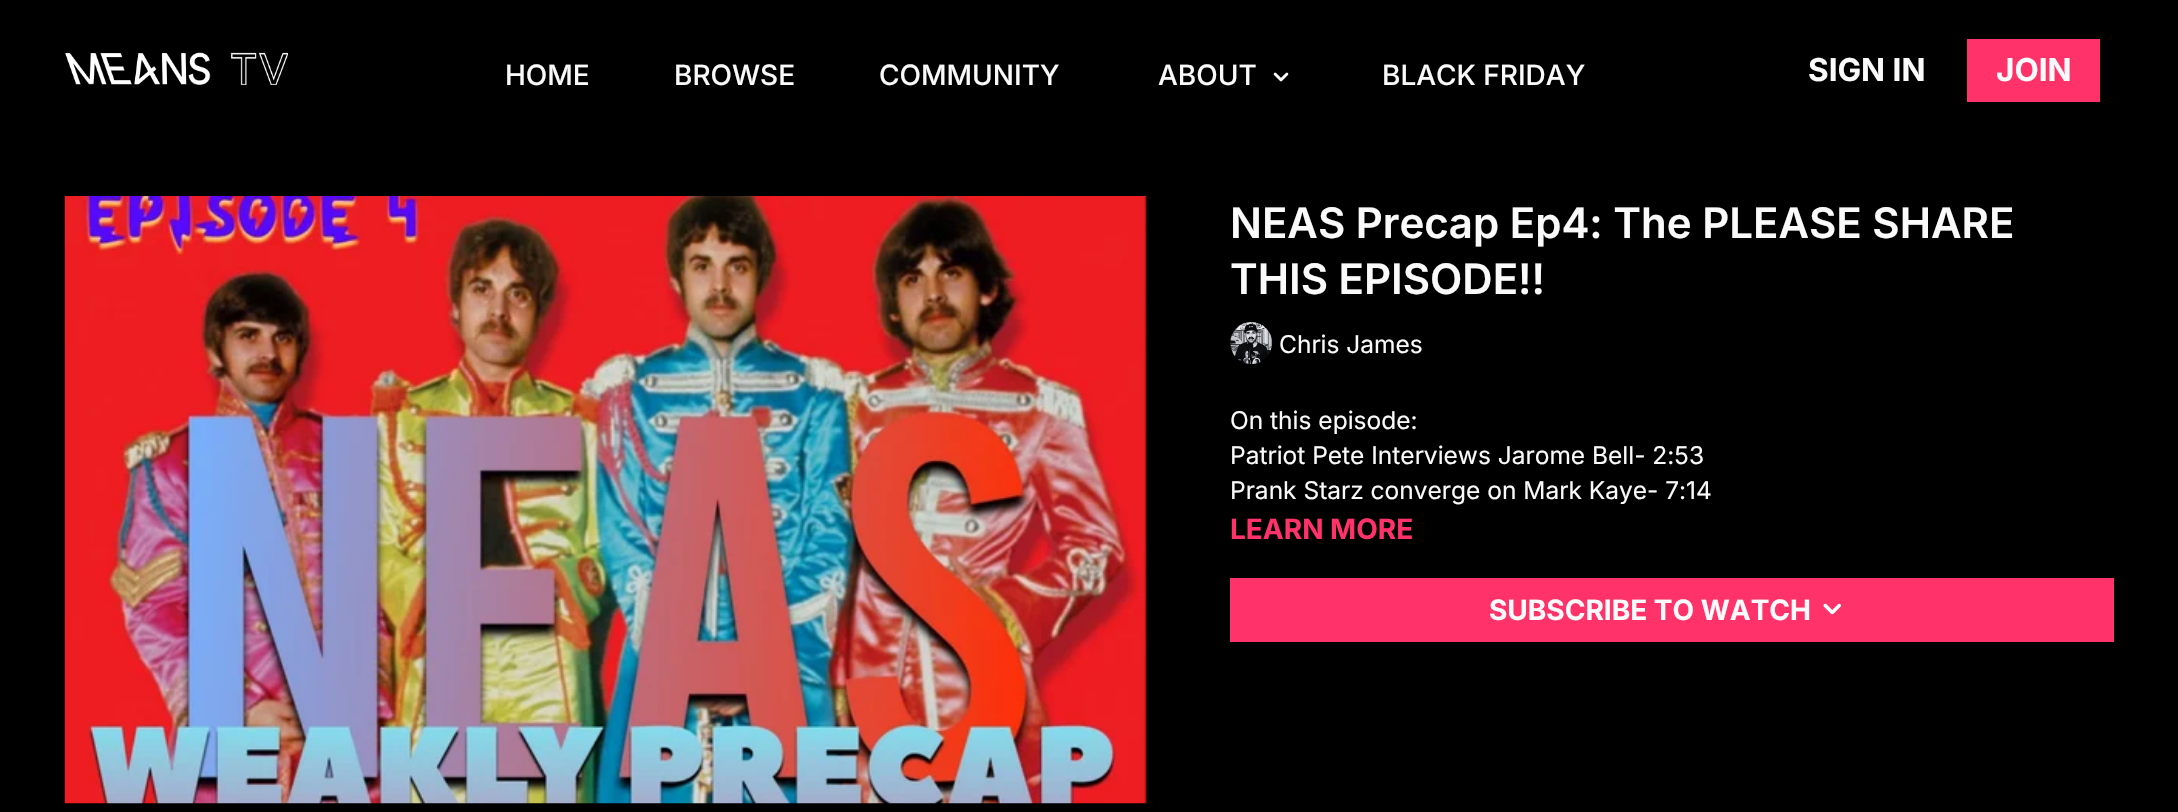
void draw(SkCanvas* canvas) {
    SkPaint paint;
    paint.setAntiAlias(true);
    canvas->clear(0xFF000000);
    canvas->drawImageRect(SkImages::DeferredFromEncodedData(SkData::MakeFromFileName("img1.png")), SkRect::MakeXYWH(65, 52, 223, 33), SkSamplingOptions());
    SkFont font1(fontMgr->matchFamilyStyle("Inter", SkFontStyle(500, SkFontStyle::kNormal_Width, SkFontStyle::kUpright_Slant)), 28);
    font1.setSubpixel(true);
    paint.setColor(0xFFFAFAFA);
    canvas->drawString("HOME", 505, 85, font1, paint);
    canvas->drawString("BROWSE", 674, 85, font1, paint);
    canvas->drawString("COMMUNITY", 879, 85, font1, paint);
    canvas->drawString("ABOUT", 1158, 85, font1, paint);
    canvas->drawImageRect(SkImages::DeferredFromEncodedData(SkData::MakeFromFileName("img2.png")), SkRect::MakeXYWH(1273, 72, 16, 10), SkSamplingOptions());
    canvas->drawString("BLACK FRIDAY", 1382, 85, font1, paint);
    SkFont font2(fontMgr->matchFamilyStyle("Inter", SkFontStyle::Bold()), 31.5f);
    font2.setSubpixel(true);
    canvas->drawString("SIGN IN", 1808, 81, font2, paint);
    paint.setColor(0xFFFF3269);
    canvas->drawRect(SkRect::MakeXYWH(1967, 39, 133, 63), paint);
    paint.setColor(0xFFFAFAFA);
    canvas->drawString("JOIN", 1996, 81, font2, paint);
    canvas->drawImageRect(SkImages::DeferredFromEncodedData(SkData::MakeFromFileName("img3.png")), SkRect::MakeXYWH(64, 196, 1083, 608), SkSamplingOptions());
    SkFont font3(fontMgr->matchFamilyStyle("Inter", SkFontStyle(600, SkFontStyle::kNormal_Width, SkFontStyle::kUpright_Slant)), 42);
    font3.setSubpixel(true);
    canvas->drawString("NEAS Precap Ep4: The PLEASE SHARE", 1230, 238, font3, paint);
    canvas->drawString("THIS EPISODE!!", 1230, 294, font3, paint);
    canvas->drawImageRect(SkImages::DeferredFromEncodedData(SkData::MakeFromFileName("img4.png")), SkRect::MakeXYWH(1230, 322, 43, 42), SkSamplingOptions());
    SkFont font4(fontMgr->matchFamilyStyle("Inter", SkFontStyle::Normal()), 24.5f);
    font4.setSubpixel(true);
    canvas->drawString("Chris James", 1279, 353, font4, paint);
    canvas->drawString("On this episode:", 1230, 429, font4, paint);
    canvas->drawString("Patriot Pete Interviews Jarome Bell- 2:53", 1230, 464, font4, paint);
    canvas->drawString("Prank Starz converge on Mark Kaye- 7:14", 1230, 499, font4, paint);
    SkFont font5(fontMgr->matchFamilyStyle("Inter", SkFontStyle::Bold()), 28);
    font5.setSubpixel(true);
    paint.setColor(0xFFFF3269);
    canvas->drawString("LEARN MORE", 1230, 539, font5, paint);
    canvas->drawRect(SkRect::MakeXYWH(1230, 578, 884, 64), paint);
    paint.setColor(0xFFFAFAFA);
    canvas->drawString("SUBSCRIBE TO WATCH", 1489, 620, font5, paint);
    canvas->drawImageRect(SkImages::DeferredFromEncodedData(SkData::MakeFromFileName("img5.png")), SkRect::MakeXYWH(1823, 603, 18, 12), SkSamplingOptions());
}
